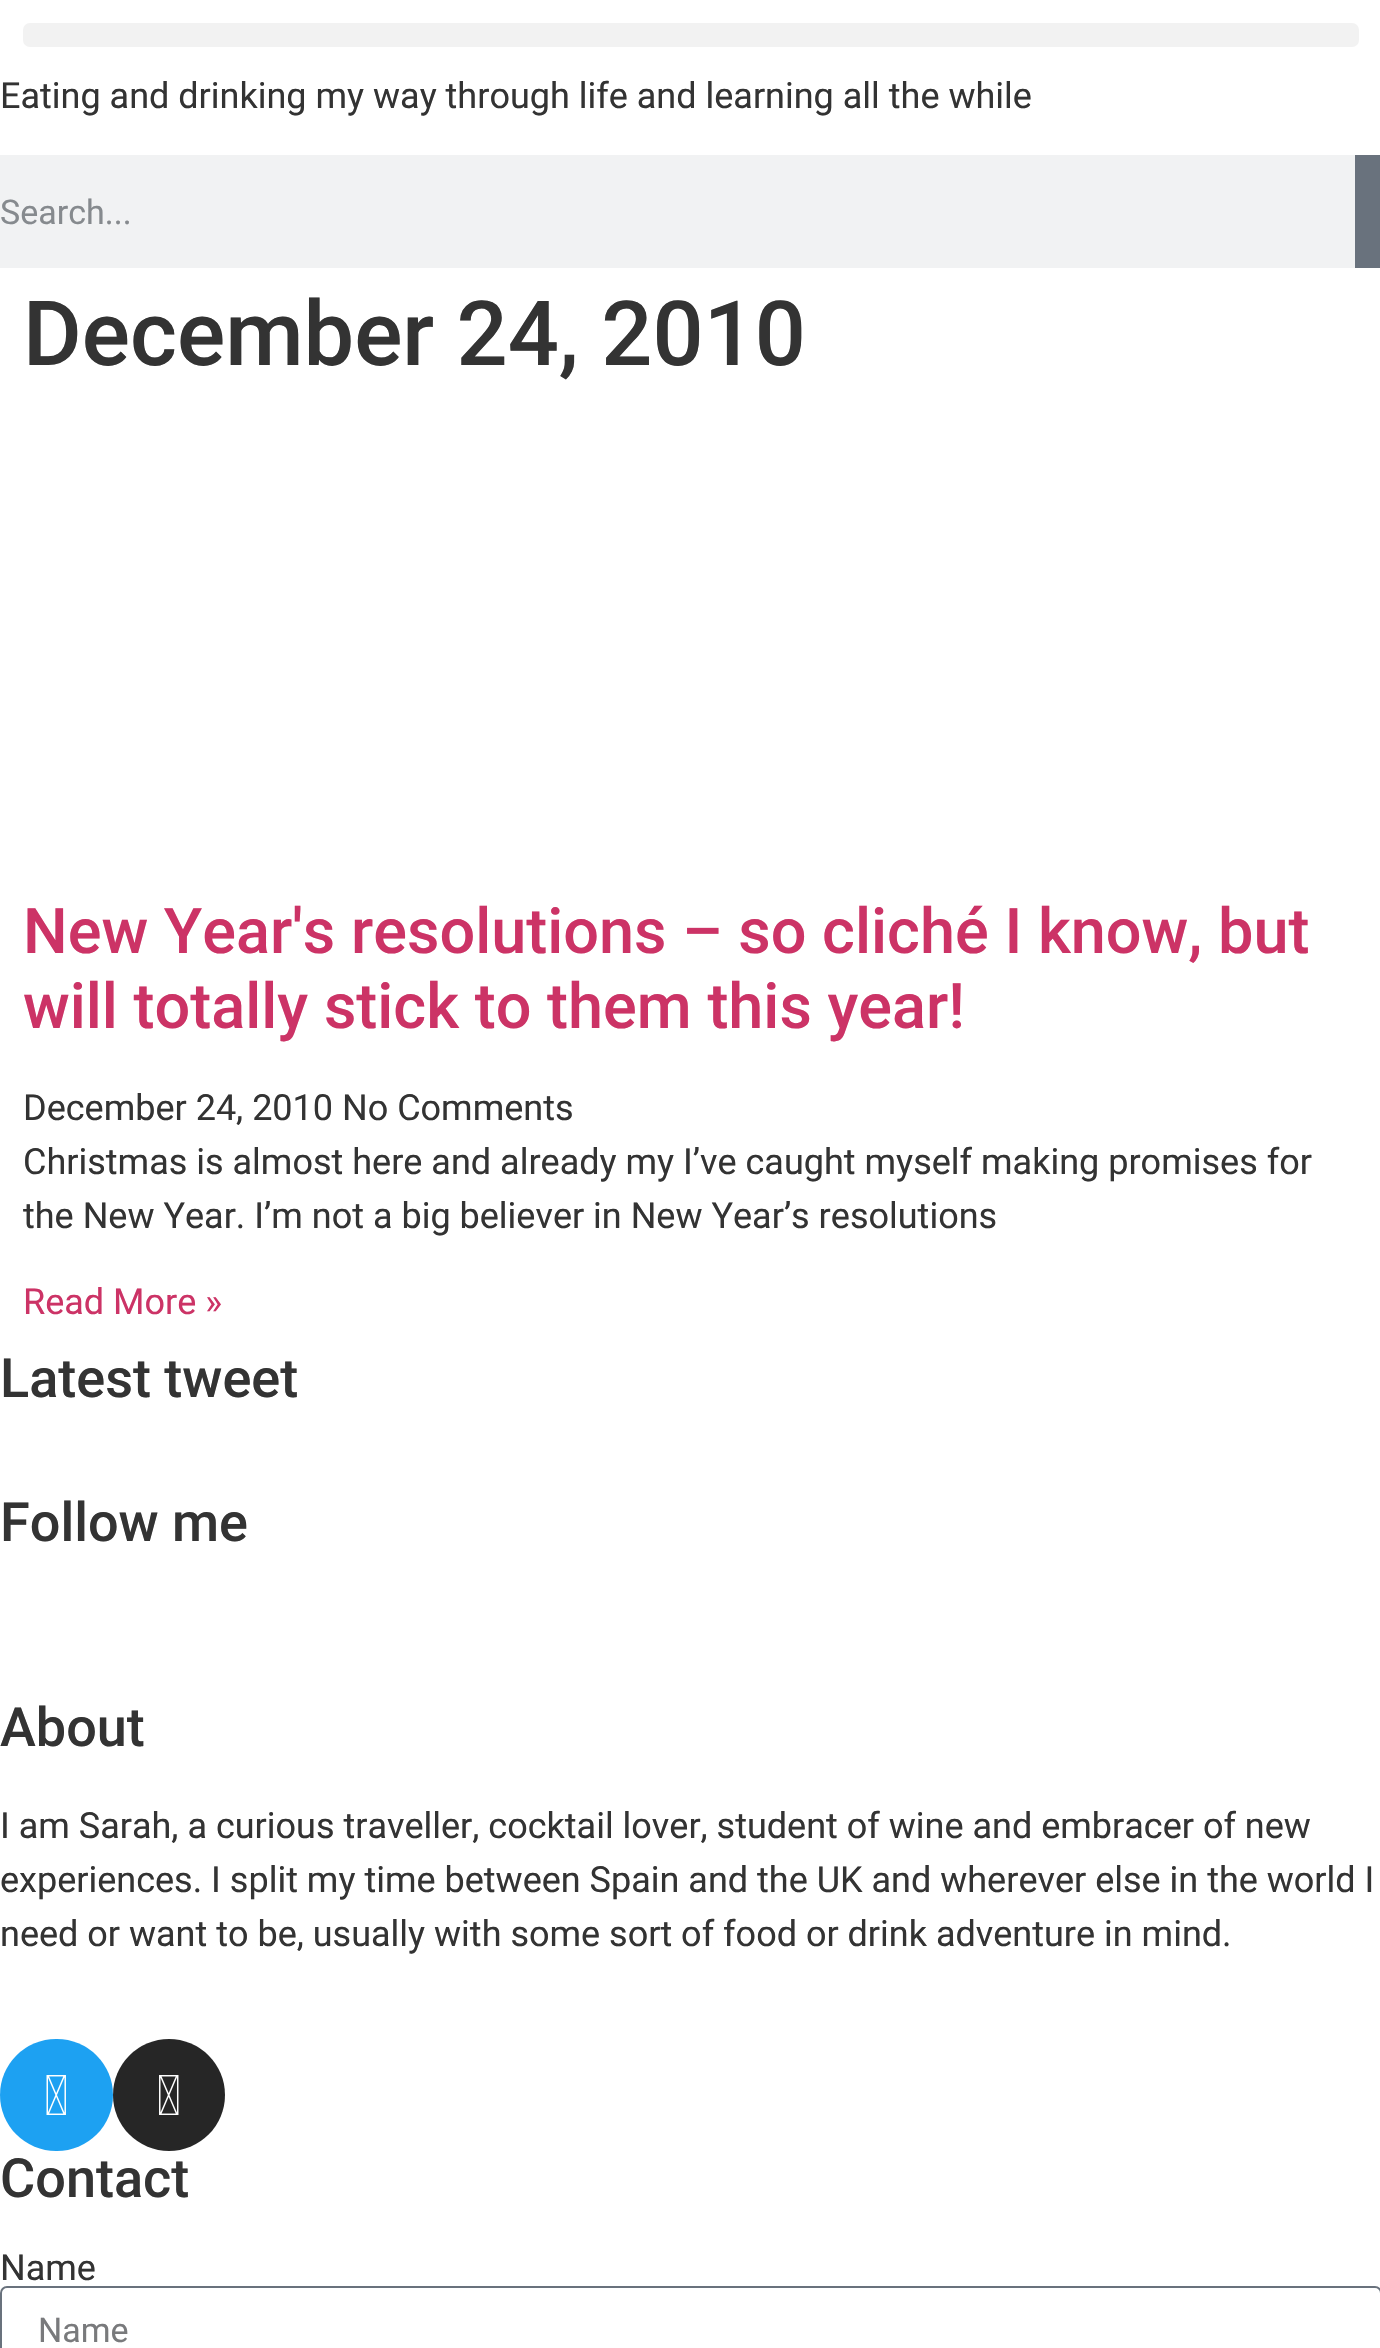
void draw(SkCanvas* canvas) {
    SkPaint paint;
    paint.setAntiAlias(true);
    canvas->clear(0xFFFFFFFF);
    paint.setColor(0xFFF2F2F2);
    canvas->drawRoundRect(SkRect::MakeXYWH(23, 23, 1336, 24), 7, 7, paint);
    SkFont font1(fontMgr->matchFamilyStyle("Roboto", SkFontStyle::Normal()), 36);
    font1.setSubpixel(true);
    paint.setColor(0xFF333333);
    canvas->drawString("Eating and drinking my way through life and learning all the while", 0, 108, font1, paint);
    paint.setColor(0xFFF1F2F3);
    canvas->drawRect(SkRect::MakeXYWH(0, 155, 1355, 113), paint);
    SkFont font2(fontMgr->matchFamilyStyle("Roboto", SkFontStyle::Normal()), 34);
    font2.setSubpixel(true);
    paint.setColor(0xFF868A8E);
    canvas->drawString("Search...", 0, 224, font2, paint);
    paint.setColor(0xFF69727D);
    canvas->drawRect(SkRect::MakeXYWH(1355, 155, 25, 113), paint);
    SkFont font3(fontMgr->matchFamilyStyle("Roboto", SkFontStyle(500, SkFontStyle::kNormal_Width, SkFontStyle::kUpright_Slant)), 90);
    font3.setSubpixel(true);
    paint.setColor(0xFF333333);
    canvas->drawString("December 24, 2010", 23, 365, font3, paint);
    SkFont font4(fontMgr->matchFamilyStyle("Roboto", SkFontStyle(500, SkFontStyle::kNormal_Width, SkFontStyle::kUpright_Slant)), 63);
    font4.setSubpixel(true);
    paint.setColor(0xFFCC3366);
    canvas->drawString("New Year's resolutions – so cliché I know, but", 23, 953, font4, paint);
    canvas->drawString("will totally stick to them this year!", 23, 1028, font4, paint);
    paint.setColor(0xFF333333);
    canvas->drawString("December 24, 2010 No Comments", 23, 1120, font1, paint);
    canvas->drawString("Christmas is almost here and already my I’ve caught myself making promises for", 23, 1174, font1, paint);
    canvas->drawString("the New Year. I’m not a big believer in New Year’s resolutions", 23, 1228, font1, paint);
    paint.setColor(0xFFCC3366);
    canvas->drawString("Read More »", 23, 1314, font1, paint);
    SkFont font5(fontMgr->matchFamilyStyle("Roboto", SkFontStyle(500, SkFontStyle::kNormal_Width, SkFontStyle::kUpright_Slant)), 54);
    font5.setSubpixel(true);
    paint.setColor(0xFF333333);
    canvas->drawString("Latest tweet", 0, 1397, font5, paint);
    canvas->drawString("Follow me", 0, 1541, font5, paint);
    canvas->drawString("About", 0, 1746, font5, paint);
    canvas->drawString("I am Sarah, a curious traveller, cocktail lover, student of wine and embracer of new", 0, 1838, font1, paint);
    canvas->drawString("experiences. I split my time between Spain and the UK and wherever else in the world I", 0, 1892, font1, paint);
    canvas->drawString("need or want to be, usually with some sort of food or drink adventure in mind.", 0, 1946, font1, paint);
    paint.setColor(0xFF1DA1F2);
    canvas->drawRoundRect(SkRect::MakeXYWH(0, 2039, 113, 112), 56, 56, paint);
    canvas->drawImageRect(SkImages::DeferredFromEncodedData(SkData::MakeFromFileName("img1.png")), SkRect::MakeXYWH(46, 2075, 20, 40), SkSamplingOptions());
    paint.setColor(0xFF262626);
    canvas->drawCircle(169, 2095, 56, paint);
    canvas->drawImageRect(SkImages::DeferredFromEncodedData(SkData::MakeFromFileName("img2.png")), SkRect::MakeXYWH(159, 2075, 20, 40), SkSamplingOptions());
    paint.setColor(0xFF333333);
    canvas->drawString("Contact", 0, 2197, font5, paint);
    canvas->drawString("Name", 0, 2280, font1, paint);
    paint.setStyle(SkPaint::kStroke_Style);
    paint.setStrokeWidth(2);
    paint.setColor(0xFF69727D);
    canvas->drawRoundRect(SkRect::MakeXYWH(1, 2287, 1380, 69), 6, 6, paint);
    paint.setStyle(SkPaint::kFill_Style);
    paint.setColor(0xFF797A7C);
    canvas->drawString("Name", 38, 2342, font2, paint);
}
